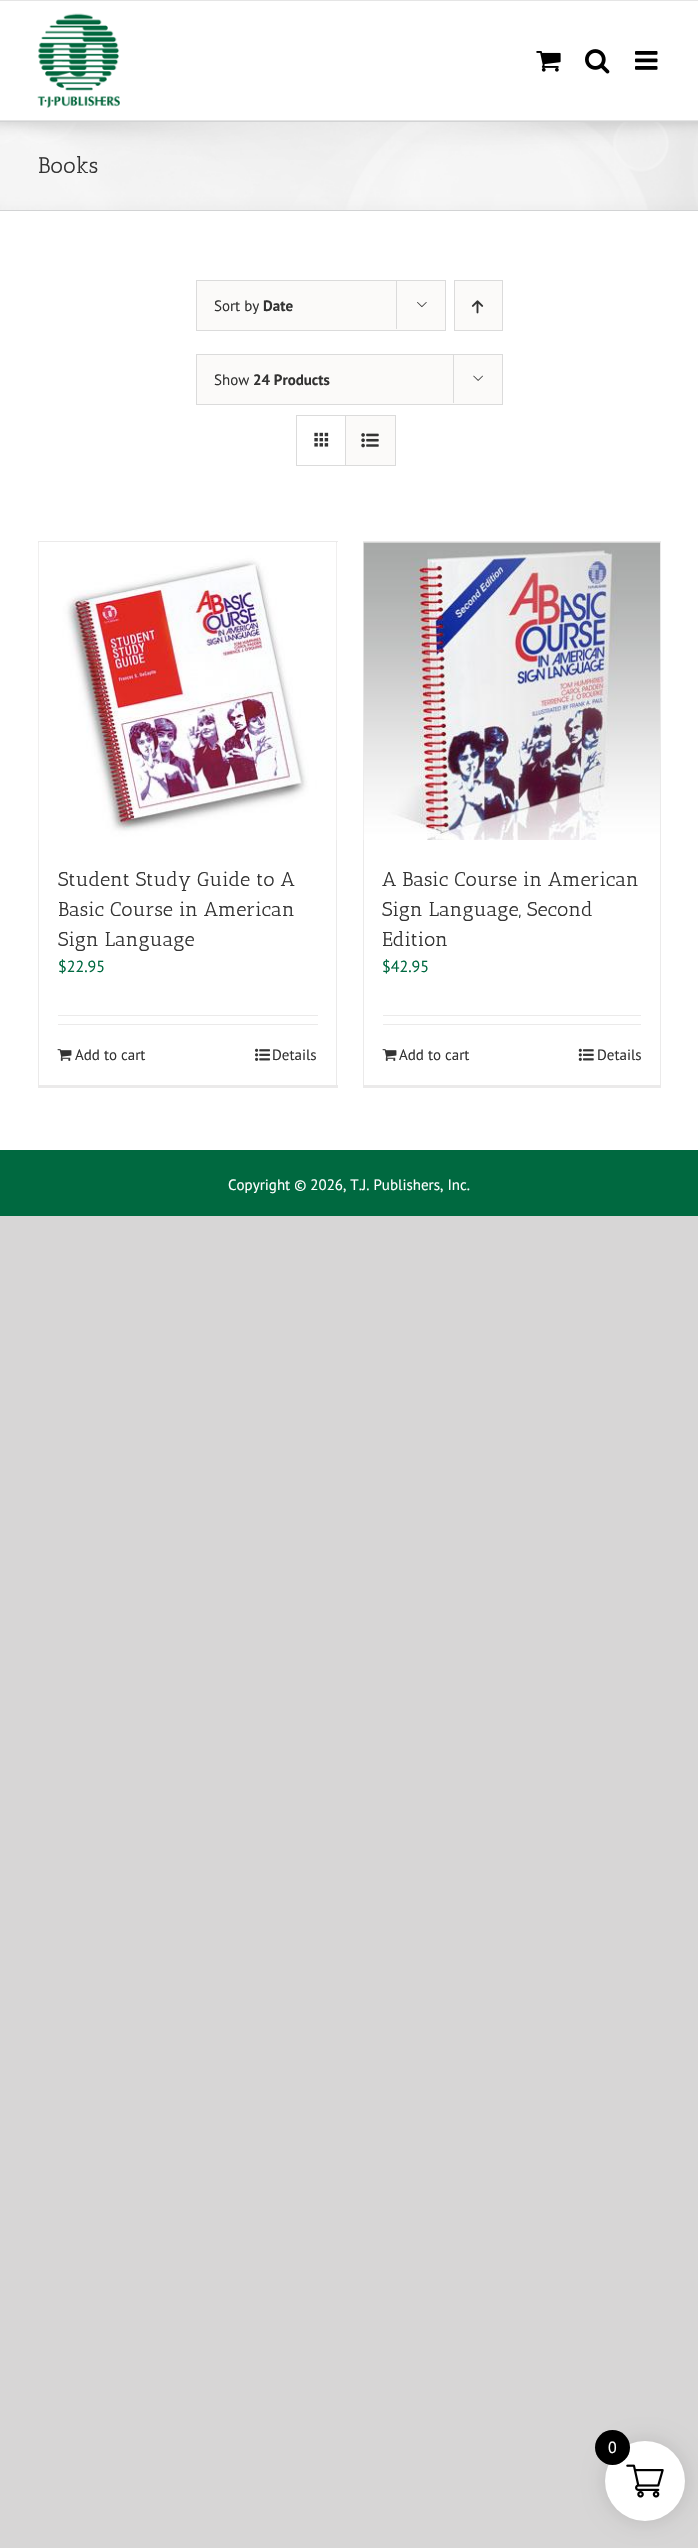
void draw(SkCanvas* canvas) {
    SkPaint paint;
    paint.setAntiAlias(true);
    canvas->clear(0xFFD7D6D6);
    paint.setColor(0xFFFFFFFF);
    canvas->drawRect(SkRect::MakeXYWH(0, 1, 698, 119), paint);
    paint.setColor(0xFFE5E5E5);
    canvas->drawRect(SkRect::MakeXYWH(0, 0, 698, 1), paint);
    canvas->drawRect(SkRect::MakeXYWH(0, 120, 698, 1), paint);
    canvas->drawImageRect(SkImages::DeferredFromEncodedData(SkData::MakeFromFileName("img1.png")), SkRect::MakeXYWH(37, 13, 83, 95), SkSamplingOptions());
    canvas->drawImageRect(SkImages::DeferredFromEncodedData(SkData::MakeFromFileName("img2.png")), SkRect::MakeXYWH(536, 51, 25, 21), SkSamplingOptions());
    canvas->drawImageRect(SkImages::DeferredFromEncodedData(SkData::MakeFromFileName("img3.png")), SkRect::MakeXYWH(585, 49, 25, 25), SkSamplingOptions());
    canvas->drawImageRect(SkImages::DeferredFromEncodedData(SkData::MakeFromFileName("img4.png")), SkRect::MakeXYWH(635, 51, 23, 19), SkSamplingOptions());
    paint.setColor(0xFFF6F6F6);
    canvas->drawRect(SkRect::MakeXYWH(0, 122, 698, 88), paint);
    canvas->drawImageRect(SkImages::DeferredFromEncodedData(SkData::MakeFromFileName("img5.png")), SkRect::MakeXYWH(0, 122, 698, 88), SkSamplingOptions());
    paint.setColor(0xFFD2D3D4);
    canvas->drawRect(SkRect::MakeXYWH(0, 121, 698, 1), paint);
    canvas->drawRect(SkRect::MakeXYWH(0, 210, 698, 1), paint);
    SkFont font1(fontMgr->matchFamilyStyle("Antic Slab", SkFontStyle::Normal()), 22.5f);
    font1.setSubpixel(true);
    paint.setColor(0xFF333333);
    canvas->drawString("Books", 38, 173, font1, paint);
    paint.setColor(0xFFFFFFFF);
    canvas->drawRect(SkRect::MakeXYWH(0, 211, 698, 939), paint);
    paint.setColor(0xFFFBFAF9);
    canvas->drawRect(SkRect::MakeXYWH(196.5f, 280.5f, 249, 50), paint);
    paint.setStyle(SkPaint::kStroke_Style);
    paint.setStrokeWidth(1);
    paint.setColor(0xFFDBDBDB);
    canvas->drawRect(SkRect::MakeXYWH(196.5f, 280.5f, 249, 50), paint);
    SkFont font2(fontMgr->matchFamilyStyle("PT Sans", SkFontStyle::Normal()), 15);
    font2.setSubpixel(true);
    paint.setStyle(SkPaint::kFill_Style);
    paint.setColor(0xFF333333);
    canvas->drawString("Sort by", 214, 311, font2, paint);
    SkFont font3(fontMgr->matchFamilyStyle("PT Sans", SkFontStyle::Bold()), 15);
    font3.setSubpixel(true);
    canvas->drawString("Date", 263, 311, font3, paint);
    paint.setColor(0xFFDBDBDB);
    canvas->drawRect(SkRect::MakeXYWH(396, 280, 1, 49), paint);
    canvas->drawImageRect(SkImages::DeferredFromEncodedData(SkData::MakeFromFileName("img6.png")), SkRect::MakeXYWH(417, 302, 10, 6), SkSamplingOptions());
    paint.setColor(0xFFFBFAF9);
    canvas->drawRect(SkRect::MakeXYWH(454.5f, 280.5f, 48, 50), paint);
    paint.setStyle(SkPaint::kStroke_Style);
    paint.setColor(0xFFDBDBDB);
    canvas->drawRect(SkRect::MakeXYWH(454.5f, 280.5f, 48, 50), paint);
    canvas->drawImageRect(SkImages::DeferredFromEncodedData(SkData::MakeFromFileName("img7.png")), SkRect::MakeXYWH(471, 300, 13, 14), SkSamplingOptions());
    paint.setStyle(SkPaint::kFill_Style);
    paint.setColor(0xFFFBFAF9);
    canvas->drawRect(SkRect::MakeXYWH(196.5f, 354.5f, 306, 50), paint);
    paint.setStyle(SkPaint::kStroke_Style);
    paint.setColor(0xFFDBDBDB);
    canvas->drawRect(SkRect::MakeXYWH(196.5f, 354.5f, 306, 50), paint);
    paint.setStyle(SkPaint::kFill_Style);
    paint.setColor(0xFF333333);
    canvas->drawString("Show", 214, 385, font2, paint);
    canvas->drawString("24 Products", 253, 385, font3, paint);
    paint.setColor(0xFFDBDBDB);
    canvas->drawRect(SkRect::MakeXYWH(453, 354, 1, 49), paint);
    canvas->drawImageRect(SkImages::DeferredFromEncodedData(SkData::MakeFromFileName("img8.png")), SkRect::MakeXYWH(473, 375, 10, 6), SkSamplingOptions());
    paint.setStyle(SkPaint::kStroke_Style);
    canvas->drawRect(SkRect::MakeXYWH(296.5f, 415.5f, 99, 50), paint);
    paint.setStyle(SkPaint::kFill_Style);
    canvas->drawRect(SkRect::MakeXYWH(345, 416, 1, 49), paint);
    canvas->drawImageRect(SkImages::DeferredFromEncodedData(SkData::MakeFromFileName("img9.png")), SkRect::MakeXYWH(314, 432, 15, 15), SkSamplingOptions());
    paint.setColor(0xFFFBFAF9);
    canvas->drawRect(SkRect::MakeXYWH(346, 416, 49, 49), paint);
    canvas->drawImageRect(SkImages::DeferredFromEncodedData(SkData::MakeFromFileName("img10.png")), SkRect::MakeXYWH(361, 433, 18, 15), SkSamplingOptions());
    paint.setColor(0xFFEBEAEA);
    canvas->drawRect(SkRect::MakeXYWH(38, 541, 300, 1), paint);
    canvas->drawRect(SkRect::MakeXYWH(336, 541, 1, 547), paint);
    canvas->drawRect(SkRect::MakeXYWH(38, 1085, 300, 3), paint);
    canvas->drawRect(SkRect::MakeXYWH(38, 541, 1, 547), paint);
    canvas->drawImageRect(SkImages::DeferredFromEncodedData(SkData::MakeFromFileName("img11.png")), SkRect::MakeXYWH(38, 543, 299, 297), SkSamplingOptions());
    SkFont font4(fontMgr->matchFamilyStyle("Antic Slab", SkFontStyle::Normal()), 20);
    font4.setSubpixel(true);
    paint.setColor(0xFF333333);
    canvas->drawString("Student Study Guide to A", 58, 886, font4, paint);
    canvas->drawString("Basic Course in American", 58, 916, font4, paint);
    canvas->drawString("Sign Language", 58, 946, font4, paint);
    SkFont font5(fontMgr->matchFamilyStyle("PT Sans", SkFontStyle::Normal()), 16);
    font5.setSubpixel(true);
    paint.setColor(0xFF006940);
    canvas->drawString("$22.95", 58, 972, font5, paint);
    paint.setColor(0xFFEBEAEA);
    canvas->drawRect(SkRect::MakeXYWH(58, 1015, 260, 1), paint);
    canvas->drawRect(SkRect::MakeXYWH(58, 1024, 260, 1), paint);
    canvas->drawImageRect(SkImages::DeferredFromEncodedData(SkData::MakeFromFileName("img12.png")), SkRect::MakeXYWH(57, 1049, 15, 12), SkSamplingOptions());
    paint.setColor(0xFF333333);
    canvas->drawString("Add to cart", 75, 1060, font2, paint);
    canvas->drawImageRect(SkImages::DeferredFromEncodedData(SkData::MakeFromFileName("img13.png")), SkRect::MakeXYWH(255, 1048, 15, 13), SkSamplingOptions());
    canvas->drawString("Details", 272, 1060, font2, paint);
    paint.setColor(0xFFEBEAEA);
    canvas->drawRect(SkRect::MakeXYWH(363, 541, 298, 1), paint);
    canvas->drawRect(SkRect::MakeXYWH(660, 541, 1, 547), paint);
    canvas->drawRect(SkRect::MakeXYWH(363, 1085, 298, 3), paint);
    canvas->drawRect(SkRect::MakeXYWH(363, 541, 1, 547), paint);
    canvas->drawImageRect(SkImages::DeferredFromEncodedData(SkData::MakeFromFileName("img14.png")), SkRect::MakeXYWH(363, 542, 297, 298), SkSamplingOptions());
    paint.setColor(0xFF333333);
    canvas->drawString("A Basic Course in American", 382, 886, font4, paint);
    canvas->drawString("Sign Language, Second", 382, 916, font4, paint);
    canvas->drawString("Edition", 382, 946, font4, paint);
    paint.setColor(0xFF006940);
    canvas->drawString("$42.95", 382, 972, font5, paint);
    paint.setColor(0xFFEBEAEA);
    canvas->drawRect(SkRect::MakeXYWH(383, 1015, 258, 1), paint);
    canvas->drawRect(SkRect::MakeXYWH(383, 1024, 258, 1), paint);
    canvas->drawImageRect(SkImages::DeferredFromEncodedData(SkData::MakeFromFileName("img12.png")), SkRect::MakeXYWH(382, 1049, 15, 12), SkSamplingOptions());
    paint.setColor(0xFF333333);
    canvas->drawString("Add to cart", 399, 1060, font2, paint);
    canvas->drawImageRect(SkImages::DeferredFromEncodedData(SkData::MakeFromFileName("img15.png")), SkRect::MakeXYWH(578, 1048, 16, 13), SkSamplingOptions());
    canvas->drawString("Details", 597, 1060, font2, paint);
    paint.setColor(0xFF006940);
    canvas->drawRect(SkRect::MakeXYWH(0, 1150, 698, 66), paint);
    paint.setColor(0xFFFFFFFF);
    canvas->drawString("Copyright © 2026, T.J. Publishers, Inc.", 228, 1190, font2, paint);
    paint.setColor(0x1A000000);
    paint.setMaskFilter(SkMaskFilter::MakeBlur(kNormal_SkBlurStyle, 9.5f));
    canvas->drawRoundRect(SkRect::MakeXYWH(603, 2439, 85, 85), 42.5f, 42.5f, paint);
    paint.setMaskFilter(nullptr);
    paint.setColor(0xFFFFFFFF);
    canvas->drawCircle(645, 2481, 40, paint);
    canvas->drawImageRect(SkImages::DeferredFromEncodedData(SkData::MakeFromFileName("img16.png")), SkRect::MakeXYWH(626, 2464, 38, 34), SkSamplingOptions());
    paint.setColor(0xFF000000);
    canvas->drawCircle(612.5f, 2447.5f, 17.5f, paint);
    paint.setColor(0xFFFFFFFF);
    canvas->drawString("0", 608, 2453, font5, paint);
}
